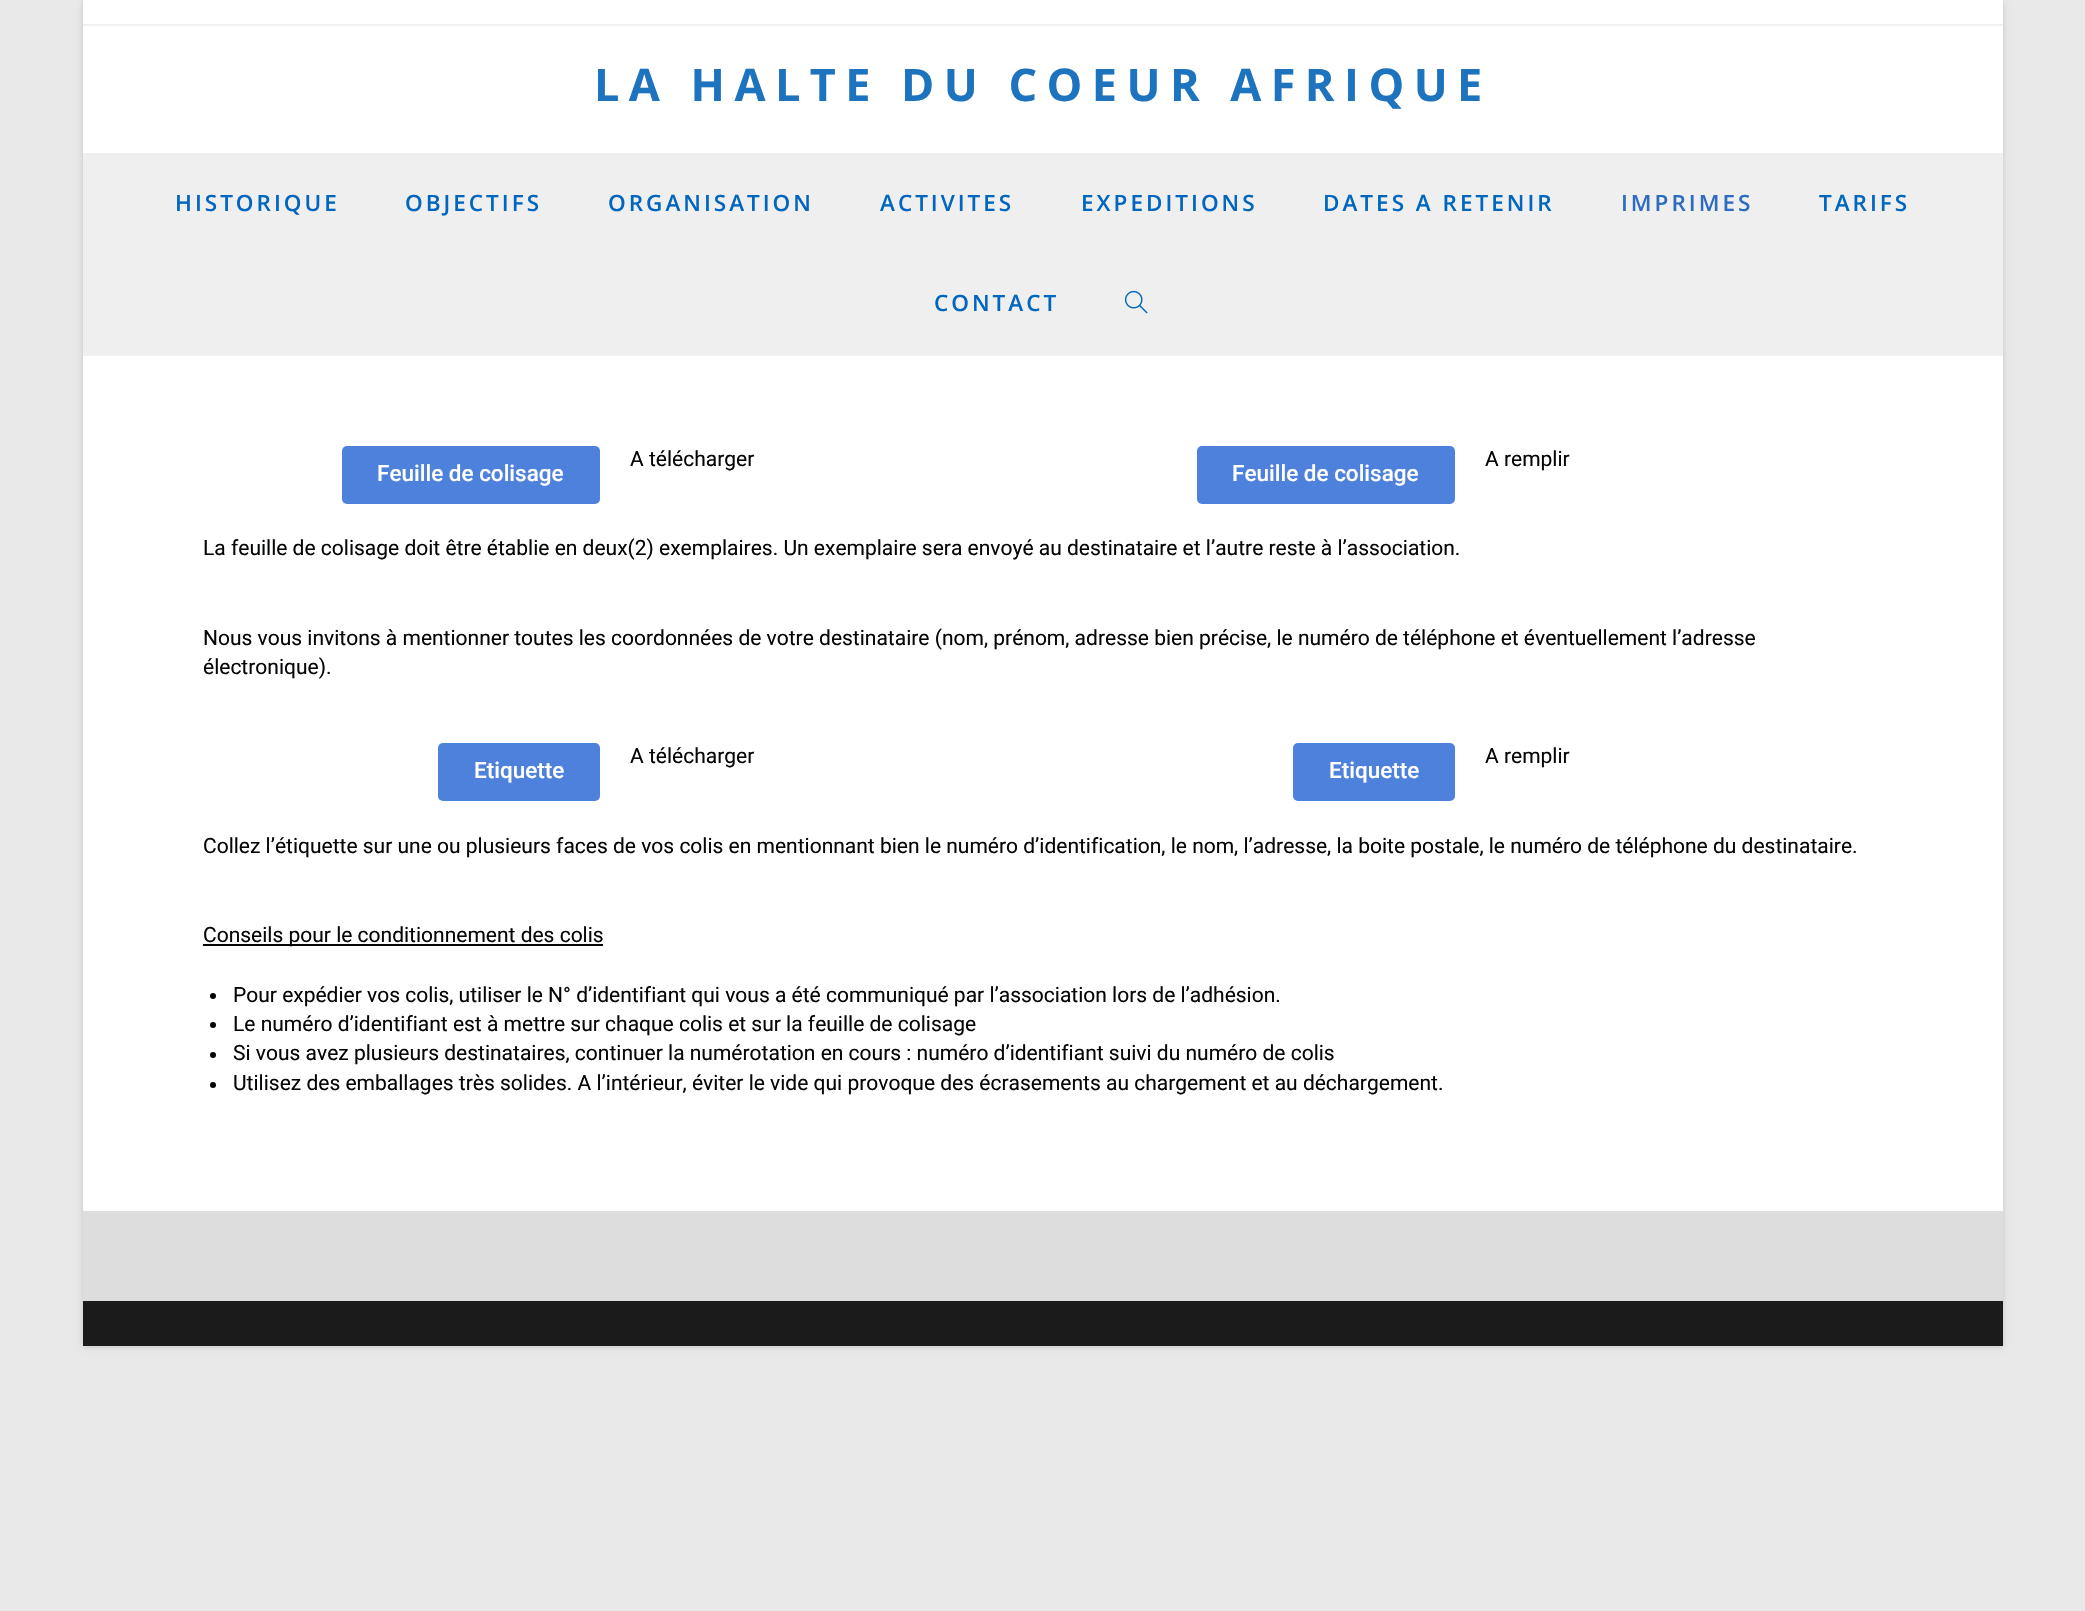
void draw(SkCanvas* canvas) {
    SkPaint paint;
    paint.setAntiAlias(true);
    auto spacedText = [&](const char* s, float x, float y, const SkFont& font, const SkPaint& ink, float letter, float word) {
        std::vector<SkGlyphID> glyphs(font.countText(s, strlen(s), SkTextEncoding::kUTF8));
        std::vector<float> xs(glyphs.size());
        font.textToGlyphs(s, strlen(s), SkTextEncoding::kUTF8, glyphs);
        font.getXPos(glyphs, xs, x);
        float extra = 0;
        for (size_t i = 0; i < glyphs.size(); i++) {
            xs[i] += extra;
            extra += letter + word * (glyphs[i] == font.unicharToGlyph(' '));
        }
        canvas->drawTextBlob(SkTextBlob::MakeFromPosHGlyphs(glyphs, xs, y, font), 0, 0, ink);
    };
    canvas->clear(0xFFE9E9E9);
    paint.setColor(0x26000000);
    paint.setMaskFilter(SkMaskFilter::MakeBlur(kNormal_SkBlurStyle, 3));
    canvas->drawRect(SkRect::MakeXYWH(83, 2, 1920, 1345), paint);
    paint.setMaskFilter(nullptr);
    paint.setColor(0xFFFFFFFF);
    canvas->drawRect(SkRect::MakeXYWH(83, 0, 1920, 1211), paint);
    paint.setColor(0xFFF1F1F1);
    canvas->drawRect(SkRect::MakeXYWH(83, 24, 1920, 2), paint);
    canvas->drawRect(SkRect::MakeXYWH(83, 354, 1920, 2), paint);
    SkFont font1(fontMgr->matchFamilyStyle("Open Sans", SkFontStyle::Bold()), 45);
    font1.setSubpixel(true);
    paint.setColor(0xFF1E73BE);
    spacedText("LA HALTE DU COEUR AFRIQUE", 594, 101, font1, paint, 9.45f, 0);
    paint.setColor(0xFFEFEFEF);
    canvas->drawRect(SkRect::MakeXYWH(83, 153, 1920, 201), paint);
    SkFont font2(fontMgr->matchFamilyStyle("Open Sans", SkFontStyle(600, SkFontStyle::kNormal_Width, SkFontStyle::kUpright_Slant)), 22.5f);
    font2.setSubpixel(true);
    paint.setColor(0xFF0066BF);
    spacedText("HISTORIQUE", 175, 211, font2, paint, 3, 0);
    spacedText("OBJECTIFS", 405, 211, font2, paint, 3, 0);
    spacedText("ORGANISATION", 608, 211, font2, paint, 3, 0);
    spacedText("ACTIVITES", 880, 211, font2, paint, 3, 0);
    spacedText("EXPEDITIONS", 1081, 211, font2, paint, 3, 0);
    spacedText("DATES A RETENIR", 1323, 211, font2, paint, 3, 0);
    paint.setColor(0xFF2D6CBF);
    spacedText("IMPRIMES", 1621, 211, font2, paint, 3, 0);
    paint.setColor(0xFF0066BF);
    spacedText("TARIFS", 1819, 211, font2, paint, 3, 0);
    spacedText("CONTACT", 934, 311, font2, paint, 3, 0);
    canvas->drawImageRect(SkImages::DeferredFromEncodedData(SkData::MakeFromFileName("img1.png")), SkRect::MakeXYWH(1124, 290, 24, 24), SkSamplingOptions());
    SkFont font3(fontMgr->matchFamilyStyle("Roboto", SkFontStyle::Normal()), 21);
    font3.setSubpixel(true);
    paint.setColor(0xFF050608);
    canvas->drawString("A télécharger", 630, 466, font3, paint);
    canvas->drawString("A remplir", 1485, 466, font3, paint);
    paint.setColor(0xFF4E81DC);
    canvas->drawRoundRect(SkRect::MakeXYWH(342, 446, 258, 58), 5, 5, paint);
    SkFont font4(fontMgr->matchFamilyStyle("Roboto", SkFontStyle(500, SkFontStyle::kNormal_Width, SkFontStyle::kUpright_Slant)), 22.5f);
    font4.setSubpixel(true);
    paint.setColor(0xFFFFFFFF);
    canvas->drawString("Feuille de colisage", 377, 481, font4, paint);
    paint.setColor(0xFF4E81DC);
    canvas->drawRoundRect(SkRect::MakeXYWH(1197, 446, 258, 58), 5, 5, paint);
    paint.setColor(0xFFFFFFFF);
    canvas->drawString("Feuille de colisage", 1232, 481, font4, paint);
    paint.setColor(0xFF050608);
    canvas->drawString("La feuille de colisage doit être établie en deux(2) exemplaires. Un exemplaire sera envoyé au destinataire et l’autre reste à l’association.", 203, 555, font3, paint);
    canvas->drawString("Nous vous invitons à mentionner toutes les coordonnées de votre destinataire (nom, prénom, adresse bien précise, le numéro de téléphone et éventuellement l’adresse", 203, 645, font3, paint);
    canvas->drawString("électronique).", 203, 674, font3, paint);
    canvas->drawString("A télécharger", 630, 763, font3, paint);
    canvas->drawString("A remplir", 1485, 763, font3, paint);
    paint.setColor(0xFF4E81DC);
    canvas->drawRoundRect(SkRect::MakeXYWH(438, 743, 162, 58), 5, 5, paint);
    paint.setColor(0xFFFFFFFF);
    canvas->drawString("Etiquette", 474, 778, font4, paint);
    paint.setColor(0xFF4E81DC);
    canvas->drawRoundRect(SkRect::MakeXYWH(1293, 743, 162, 58), 5, 5, paint);
    paint.setColor(0xFFFFFFFF);
    canvas->drawString("Etiquette", 1329, 778, font4, paint);
    paint.setColor(0xFF050608);
    canvas->drawString("Collez l’étiquette sur une ou plusieurs faces de vos colis en mentionnant bien le numéro d’identification, le nom, l’adresse, la boite postale, le numéro de téléphone du destinataire.", 203, 853, font3, paint);
    canvas->drawRect(SkRect::MakeXYWH(203, 944, 400, 2), paint);
    canvas->drawString("Conseils pour le conditionnement des colis", 203, 942, font3, paint);
    canvas->drawCircle(213, 996, 3, paint);
    canvas->drawString("Pour expédier vos colis, utiliser le N° d’identifiant qui vous a été communiqué par l’association lors de l’adhésion.", 233, 1002, font3, paint);
    canvas->drawCircle(213, 1025, 3, paint);
    canvas->drawString("Le numéro d’identifiant est à mettre sur chaque colis et sur la feuille de colisage", 233, 1031, font3, paint);
    canvas->drawCircle(213, 1055, 3, paint);
    canvas->drawString("Si vous avez plusieurs destinataires, continuer la numérotation en cours : numéro d’identifiant suivi du numéro de colis", 233, 1060, font3, paint);
    canvas->drawCircle(213, 1085, 3, paint);
    canvas->drawString("Utilisez des emballages très solides. A l’intérieur, éviter le vide qui provoque des écrasements au chargement et au déchargement.", 233, 1090, font3, paint);
    paint.setColor(0xFFDDDDDD);
    canvas->drawRect(SkRect::MakeXYWH(83, 1211, 1920, 90), paint);
    paint.setColor(0xFF1B1B1B);
    canvas->drawRect(SkRect::MakeXYWH(83, 1301, 1920, 45), paint);
}
